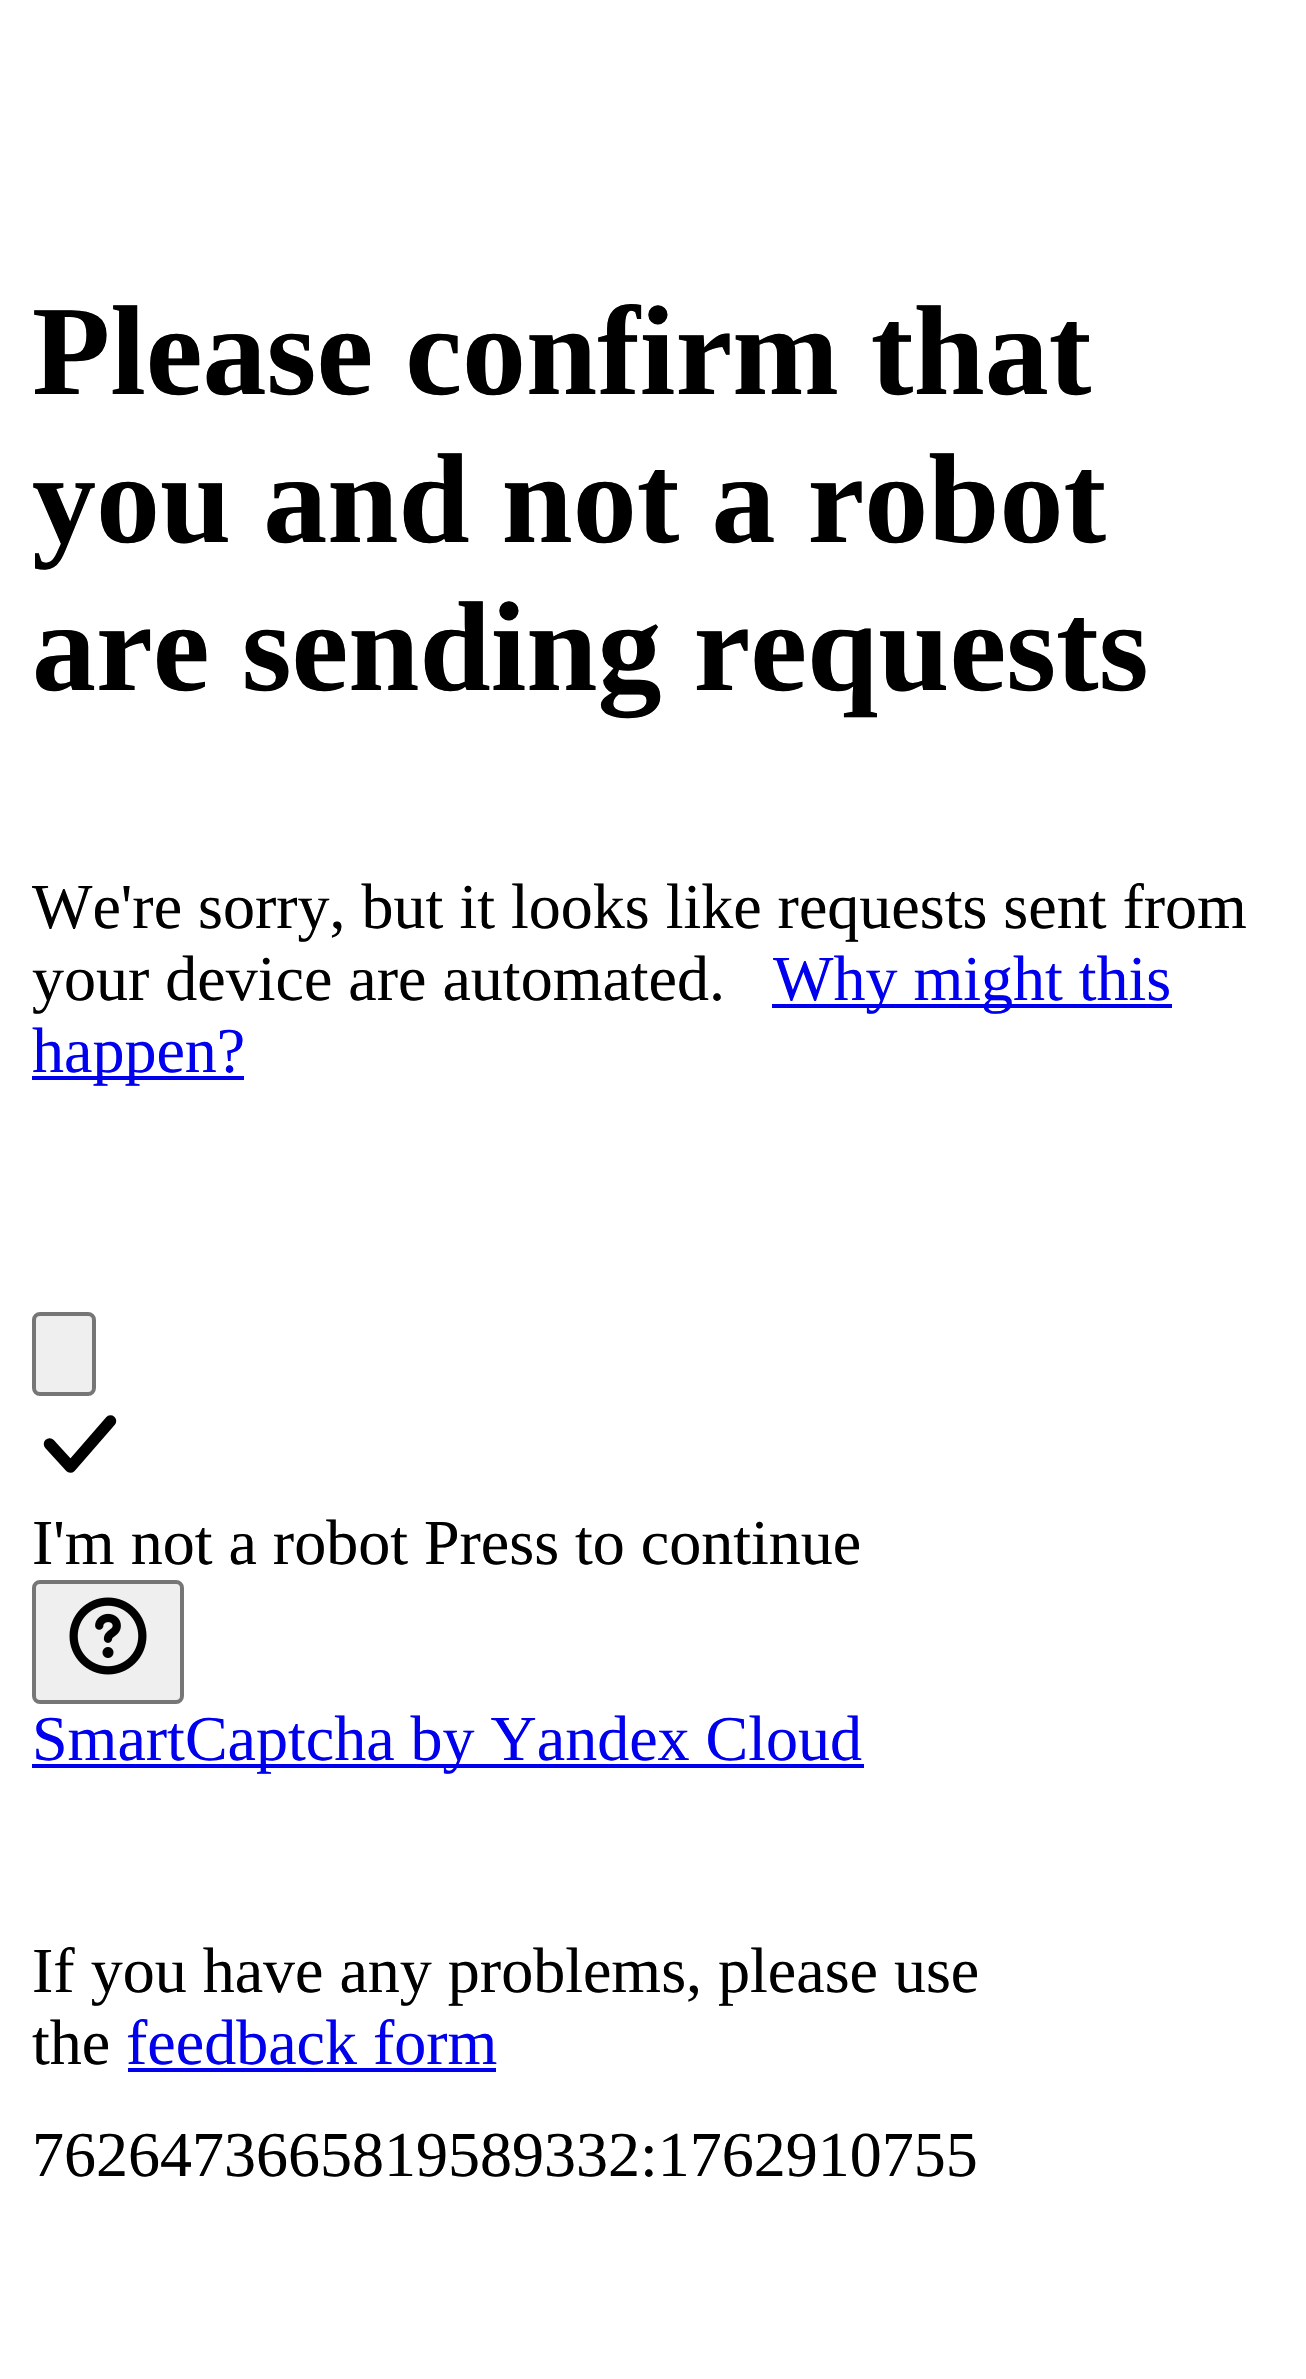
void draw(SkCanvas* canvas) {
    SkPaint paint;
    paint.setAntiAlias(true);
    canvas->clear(0xFFFFFFFF);
    SkFont font1(fontMgr->matchFamilyStyle("Liberation Serif", SkFontStyle::Bold()), 128);
    font1.setSubpixel(true);
    paint.setColor(0xFF000000);
    canvas->drawString("Please confirm that", 32, 394, font1, paint);
    canvas->drawString("you and not a robot", 32, 542, font1, paint);
    canvas->drawString("are sending requests", 32, 690, font1, paint);
    SkFont font2(fontMgr->matchFamilyStyle("Liberation Serif", SkFontStyle::Normal()), 64);
    font2.setSubpixel(true);
    canvas->drawString("We're sorry, but it looks like requests sent from", 32, 928, font2, paint);
    canvas->drawString("your device are automated.", 32, 1000, font2, paint);
    paint.setColor(0xFF0000EE);
    canvas->drawRect(SkRect::MakeXYWH(772, 1004, 400, 4), paint);
    canvas->drawString("Why might this", 773, 1000, font2, paint);
    canvas->drawRect(SkRect::MakeXYWH(32, 1076, 212, 4), paint);
    canvas->drawString("happen?", 32, 1072, font2, paint);
    paint.setColor(0xFFEFEFEF);
    canvas->drawRoundRect(SkRect::MakeXYWH(34, 1314, 60, 80), 6, 6, paint);
    paint.setStyle(SkPaint::kStroke_Style);
    paint.setStrokeWidth(4);
    paint.setColor(0xFF767676);
    canvas->drawRoundRect(SkRect::MakeXYWH(34, 1314, 60, 80), 6, 6, paint);
    paint.setStrokeWidth(11.5f);
    paint.setStrokeCap(SkPaint::kRound_Cap);
    paint.setStrokeJoin(SkPaint::kRound_Join);
    paint.setColor(0xFF000000);
    canvas->drawPath(SkPathBuilder().moveTo(49.5f, 1444).lineTo(70.5f, 1467).lineTo(110.5f, 1421).detach(), paint);
    paint.setStyle(SkPaint::kFill_Style);
    canvas->drawString("I'm not a robot Press to continue", 32, 1564, font2, paint);
    paint.setColor(0xFFEFEFEF);
    canvas->drawRoundRect(SkRect::MakeXYWH(34, 1582, 148, 120), 6, 6, paint);
    paint.setStyle(SkPaint::kStroke_Style);
    paint.setStrokeWidth(4);
    paint.setStrokeCap(SkPaint::kButt_Cap);
    paint.setStrokeJoin(SkPaint::kMiter_Join);
    paint.setColor(0xFF767676);
    canvas->drawRoundRect(SkRect::MakeXYWH(34, 1582, 148, 120), 6, 6, paint);
    canvas->drawImageRect(SkImages::DeferredFromEncodedData(SkData::MakeFromFileName("img1.png")), SkRect::MakeXYWH(69, 1597, 78, 78), SkSamplingOptions());
    paint.setStyle(SkPaint::kFill_Style);
    paint.setColor(0xFF0000EE);
    canvas->drawRect(SkRect::MakeXYWH(32, 1764, 832, 4), paint);
    canvas->drawString("SmartCaptcha by Yandex Cloud", 32, 1760, font2, paint);
    paint.setColor(0xFF000000);
    canvas->drawString("If you have any problems, please use", 32, 1992, font2, paint);
    canvas->drawString("the", 32, 2064, font2, paint);
    paint.setColor(0xFF0000EE);
    canvas->drawString("feedback form", 126, 2064, font2, paint);
    canvas->drawRect(SkRect::MakeXYWH(128, 2068, 368, 4), paint);
    paint.setColor(0xFF000000);
    canvas->drawString("7626473665819589332:1762910755", 32, 2176, font2, paint);
}
